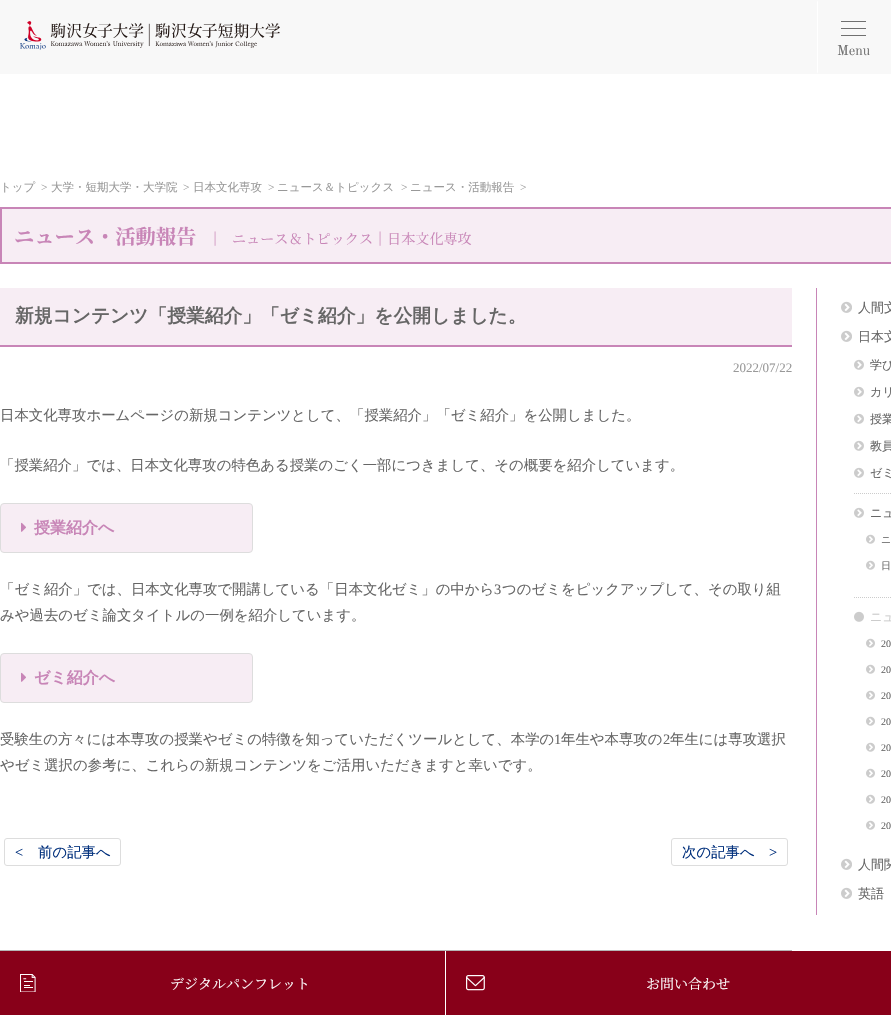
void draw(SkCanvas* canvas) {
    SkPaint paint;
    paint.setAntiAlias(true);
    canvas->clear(0xFFFFFFFF);
    paint.setColor(0xFFF8F8F8);
    canvas->drawRect(SkRect::MakeXYWH(0, 0, 891, 74), paint);
    canvas->drawImageRect(SkImages::DeferredFromEncodedData(SkData::MakeFromFileName("img1.png")), SkRect::MakeXYWH(20, 21, 260, 29), SkSamplingOptions());
    paint.setColor(0xFFFFFFFF);
    canvas->drawPath(SkPathBuilder().moveTo(817, 74).lineTo(817, 0).lineTo(818, 2).lineTo(818, 72).close().detach(), paint);
    paint.setColor(0xFF707070);
    canvas->drawRect(SkRect::MakeXYWH(841, 21, 25, 1), paint);
    canvas->drawRect(SkRect::MakeXYWH(841, 28, 25, 1), paint);
    canvas->drawRect(SkRect::MakeXYWH(841, 35, 25, 1), paint);
    SkFont font1(fontMgr->matchFamilyStyle("Old Standard TT", SkFontStyle::Normal()), 14);
    font1.setSubpixel(true);
    canvas->drawString("Menu", 837, 55, font1, paint);
    SkFont font2(fontMgr->matchFamilyStyle("WenQuanYi Zen Hei", SkFontStyle(500, SkFontStyle::kNormal_Width, SkFontStyle::kUpright_Slant)), 11.5f);
    font2.setSubpixel(true);
    paint.setColor(0xFF999999);
    canvas->drawString("トップ", 0, 191, font2, paint);
    SkFont font3(fontMgr->matchFamilyStyle("Liberation Serif", SkFontStyle::Normal()), 11.5f);
    font3.setSubpixel(true);
    canvas->drawString(">", 41, 191, font3, paint);
    canvas->drawString("大学・短期大学・大学院", 51, 191, font2, paint);
    canvas->drawString(">", 183, 191, font3, paint);
    canvas->drawString("日本文化専攻", 193, 191, font2, paint);
    canvas->drawString(">", 268, 191, font3, paint);
    canvas->drawString("ニュース＆トピックス", 277, 191, font2, paint);
    canvas->drawString(">", 401, 191, font3, paint);
    canvas->drawString("ニュース・活動報告", 410, 191, font2, paint);
    canvas->drawString(">", 520, 191, font3, paint);
    paint.setColor(0xFFF7EDF4);
    canvas->drawRect(SkRect::MakeXYWH(1, 208, 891, 55), paint);
    paint.setStyle(SkPaint::kStroke_Style);
    paint.setStrokeWidth(2);
    paint.setColor(0xFFC885B7);
    canvas->drawRect(SkRect::MakeXYWH(1, 208, 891, 55), paint);
    SkFont font4(fontMgr->matchFamilyStyle("Noto Serif JP", SkFontStyle::Bold()), 20.25f);
    font4.setSubpixel(true);
    paint.setStyle(SkPaint::kFill_Style);
    canvas->drawString("ニュース・活動報告", 14, 244, font4, paint);
    SkFont font5(fontMgr->matchFamilyStyle("Noto Serif JP", SkFontStyle::Normal()), 14.1f);
    font5.setSubpixel(true);
    canvas->drawString("｜", 208, 244, font5, paint);
    canvas->drawString("ニュース＆トピックス｜日本文化専攻", 232, 244, font5, paint);
    paint.setColor(0xFFF7EDF4);
    canvas->drawRect(SkRect::MakeXYWH(0, 288, 792, 57), paint);
    paint.setColor(0xFFC885B7);
    canvas->drawRect(SkRect::MakeXYWH(0, 345, 792, 2), paint);
    SkFont font6(fontMgr->matchFamilyStyle("WenQuanYi Zen Hei", SkFontStyle::Bold()), 18.75f);
    font6.setSubpixel(true);
    paint.setColor(0xFF666666);
    canvas->drawString("新規コンテンツ「授業紹介」「ゼミ紹介」を公開しました。", 15, 322, font6, paint);
    SkFont font7(fontMgr->matchFamilyStyle("Liberation Serif", SkFontStyle::Normal()), 13);
    font7.setSubpixel(true);
    paint.setColor(0xFF999999);
    canvas->drawString("2022/07/22", 733, 372, font7, paint);
    SkFont font8(fontMgr->matchFamilyStyle("WenQuanYi Zen Hei", SkFontStyle(500, SkFontStyle::kNormal_Width, SkFontStyle::kUpright_Slant)), 14.4f);
    font8.setSubpixel(true);
    paint.setColor(0xFF666666);
    canvas->drawString("日本文化専攻ホームページの新規コンテンツとして、「授業紹介」「ゼミ紹介」を公開しました。", 0, 420, font8, paint);
    canvas->drawString("「授業紹介」では、日本文化専攻の特色ある授業のごく一部につきまして、その概要を紹介しています。", 0, 470, font8, paint);
    paint.setColor(0xFFF7EDF4);
    canvas->drawRoundRect(SkRect::MakeXYWH(0.5f, 503.5f, 252, 49), 3.5f, 3.5f, paint);
    paint.setStyle(SkPaint::kStroke_Style);
    paint.setStrokeWidth(1);
    paint.setColor(0xFFDDDDDD);
    canvas->drawRoundRect(SkRect::MakeXYWH(0.5f, 503.5f, 252, 49), 3.5f, 3.5f, paint);
    canvas->drawImageRect(SkImages::DeferredFromEncodedData(SkData::MakeFromFileName("img2.png")), SkRect::MakeXYWH(21, 522, 5, 10), SkSamplingOptions());
    SkFont font9(fontMgr->matchFamilyStyle("WenQuanYi Zen Hei", SkFontStyle::Bold()), 16);
    font9.setSubpixel(true);
    paint.setStyle(SkPaint::kFill_Style);
    paint.setColor(0xFFC885B7);
    canvas->drawString("授業紹介へ", 34, 533, font9, paint);
    paint.setColor(0xFF666666);
    canvas->drawString("「ゼミ紹介」では、日本文化専攻で開講している「日本文化ゼミ」の中から", 0, 594, font8, paint);
    SkFont font10(fontMgr->matchFamilyStyle("Liberation Serif", SkFontStyle::Normal()), 14.4f);
    font10.setSubpixel(true);
    canvas->drawString("3", 494, 594, font10, paint);
    canvas->drawString("つのゼミをピックアップして、その取り組", 502, 594, font8, paint);
    canvas->drawString("みや過去のゼミ論文タイトルの一例を紹介しています。", 0, 620, font8, paint);
    paint.setColor(0xFFF7EDF4);
    canvas->drawRoundRect(SkRect::MakeXYWH(0.5f, 653.5f, 252, 49), 3.5f, 3.5f, paint);
    paint.setStyle(SkPaint::kStroke_Style);
    paint.setColor(0xFFDDDDDD);
    canvas->drawRoundRect(SkRect::MakeXYWH(0.5f, 653.5f, 252, 49), 3.5f, 3.5f, paint);
    canvas->drawImageRect(SkImages::DeferredFromEncodedData(SkData::MakeFromFileName("img2.png")), SkRect::MakeXYWH(21, 672, 5, 10), SkSamplingOptions());
    paint.setStyle(SkPaint::kFill_Style);
    paint.setColor(0xFFC885B7);
    canvas->drawString("ゼミ紹介へ", 34, 683, font9, paint);
    paint.setColor(0xFF666666);
    canvas->drawString("受験生の方々には本専攻の授業やゼミの特徴を知っていただくツールとして、本学の", 0, 744, font8, paint);
    canvas->drawString("1", 554, 744, font10, paint);
    canvas->drawString("年生や本専攻の", 561, 744, font8, paint);
    canvas->drawString("2", 663, 744, font10, paint);
    canvas->drawString("年生には専攻選択", 670, 744, font8, paint);
    canvas->drawString("やゼミ選択の参考に、これらの新規コンテンツをご活用いただきますと幸いです。", 0, 770, font8, paint);
    paint.setStyle(SkPaint::kStroke_Style);
    paint.setColor(0xFFDDDDDD);
    canvas->drawRoundRect(SkRect::MakeXYWH(4.5f, 838.5f, 116, 27), 2.5f, 2.5f, paint);
    paint.setStyle(SkPaint::kFill_Style);
    paint.setColor(0xFF002F7C);
    canvas->drawString("<", 15, 857, font10, paint);
    canvas->drawString("前の記事へ", 38, 857, font8, paint);
    paint.setStyle(SkPaint::kStroke_Style);
    paint.setColor(0xFFDDDDDD);
    canvas->drawRoundRect(SkRect::MakeXYWH(671.5f, 838.5f, 116, 27), 2.5f, 2.5f, paint);
    paint.setStyle(SkPaint::kFill_Style);
    paint.setColor(0xFF002F7C);
    canvas->drawString("次の記事へ", 682, 857, font8, paint);
    canvas->drawString(">", 769, 857, font10, paint);
    paint.setStyle(SkPaint::kStroke_Style);
    paint.setColor(0xFFB5B5B5);
    canvas->drawRect(SkRect::MakeXYWH(0.5f, 950.5f, 791, 43), paint);
    paint.setStyle(SkPaint::kFill_Style);
    paint.setColor(0xFFC885B7);
    canvas->drawRect(SkRect::MakeXYWH(816, 288, 1, 627), paint);
    canvas->drawImageRect(SkImages::DeferredFromEncodedData(SkData::MakeFromFileName("img3.png")), SkRect::MakeXYWH(841, 301, 11, 12), SkSamplingOptions());
    SkFont font11(fontMgr->matchFamilyStyle("WenQuanYi Zen Hei", SkFontStyle(500, SkFontStyle::kNormal_Width, SkFontStyle::kUpright_Slant)), 13);
    font11.setSubpixel(true);
    paint.setColor(0xFF666666);
    canvas->drawString("人間文", 858, 312, font11, paint);
    canvas->drawImageRect(SkImages::DeferredFromEncodedData(SkData::MakeFromFileName("img3.png")), SkRect::MakeXYWH(841, 330, 11, 12), SkSamplingOptions());
    canvas->drawString("日本文", 858, 341, font11, paint);
    canvas->drawImageRect(SkImages::DeferredFromEncodedData(SkData::MakeFromFileName("img4.png")), SkRect::MakeXYWH(854, 359, 10, 11), SkSamplingOptions());
    SkFont font12(fontMgr->matchFamilyStyle("WenQuanYi Zen Hei", SkFontStyle(500, SkFontStyle::kNormal_Width, SkFontStyle::kUpright_Slant)), 12);
    font12.setSubpixel(true);
    canvas->drawString("学び", 870, 369, font12, paint);
    canvas->drawImageRect(SkImages::DeferredFromEncodedData(SkData::MakeFromFileName("img4.png")), SkRect::MakeXYWH(854, 386, 10, 11), SkSamplingOptions());
    canvas->drawString("カリ", 870, 396, font12, paint);
    canvas->drawImageRect(SkImages::DeferredFromEncodedData(SkData::MakeFromFileName("img4.png")), SkRect::MakeXYWH(854, 413, 10, 11), SkSamplingOptions());
    canvas->drawString("授業", 870, 423, font12, paint);
    canvas->drawImageRect(SkImages::DeferredFromEncodedData(SkData::MakeFromFileName("img4.png")), SkRect::MakeXYWH(854, 440, 10, 11), SkSamplingOptions());
    canvas->drawString("教員", 870, 450, font12, paint);
    canvas->drawImageRect(SkImages::DeferredFromEncodedData(SkData::MakeFromFileName("img4.png")), SkRect::MakeXYWH(854, 467, 10, 11), SkSamplingOptions());
    canvas->drawString("ゼミ", 870, 477, font12, paint);
    paint.setStyle(SkPaint::kStroke_Style);
    paint.setColor(0xFFCCCCCC);
    paint.setPathEffect(SkDashPathEffect::Make({{1, 1}}, 0));
    canvas->drawPath(SkPathBuilder().moveTo(854, 493.5f).lineTo(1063, 493.5f).detach(), paint);
    paint.setPathEffect(nullptr);
    canvas->drawImageRect(SkImages::DeferredFromEncodedData(SkData::MakeFromFileName("img4.png")), SkRect::MakeXYWH(854, 507, 10, 11), SkSamplingOptions());
    paint.setStyle(SkPaint::kFill_Style);
    paint.setColor(0xFF666666);
    canvas->drawString("ニュ", 870, 517, font12, paint);
    canvas->drawImageRect(SkImages::DeferredFromEncodedData(SkData::MakeFromFileName("img5.png")), SkRect::MakeXYWH(866, 534, 9, 10), SkSamplingOptions());
    SkFont font13(fontMgr->matchFamilyStyle("WenQuanYi Zen Hei", SkFontStyle(500, SkFontStyle::kNormal_Width, SkFontStyle::kUpright_Slant)), 10);
    font13.setSubpixel(true);
    canvas->drawString("ニ", 881, 543, font13, paint);
    canvas->drawImageRect(SkImages::DeferredFromEncodedData(SkData::MakeFromFileName("img5.png")), SkRect::MakeXYWH(866, 560, 9, 10), SkSamplingOptions());
    canvas->drawString("日", 881, 569, font13, paint);
    paint.setStyle(SkPaint::kStroke_Style);
    paint.setColor(0xFFCCCCCC);
    paint.setPathEffect(SkDashPathEffect::Make({{1, 1}}, 0));
    canvas->drawPath(SkPathBuilder().moveTo(854, 597.5f).lineTo(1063, 597.5f).detach(), paint);
    paint.setPathEffect(nullptr);
    canvas->drawImageRect(SkImages::DeferredFromEncodedData(SkData::MakeFromFileName("img6.png")), SkRect::MakeXYWH(854, 611, 10, 11), SkSamplingOptions());
    paint.setStyle(SkPaint::kFill_Style);
    canvas->drawString("ニュ", 870, 621, font12, paint);
    canvas->drawImageRect(SkImages::DeferredFromEncodedData(SkData::MakeFromFileName("img5.png")), SkRect::MakeXYWH(866, 638, 9, 10), SkSamplingOptions());
    SkFont font14(fontMgr->matchFamilyStyle("Liberation Serif", SkFontStyle::Normal()), 10);
    font14.setSubpixel(true);
    paint.setColor(0xFF666666);
    canvas->drawString("20", 881, 647, font14, paint);
    canvas->drawImageRect(SkImages::DeferredFromEncodedData(SkData::MakeFromFileName("img5.png")), SkRect::MakeXYWH(866, 664, 9, 10), SkSamplingOptions());
    canvas->drawString("20", 881, 673, font14, paint);
    canvas->drawImageRect(SkImages::DeferredFromEncodedData(SkData::MakeFromFileName("img5.png")), SkRect::MakeXYWH(866, 690, 9, 10), SkSamplingOptions());
    canvas->drawString("20", 881, 699, font14, paint);
    canvas->drawImageRect(SkImages::DeferredFromEncodedData(SkData::MakeFromFileName("img5.png")), SkRect::MakeXYWH(866, 716, 9, 10), SkSamplingOptions());
    canvas->drawString("20", 881, 725, font14, paint);
    canvas->drawImageRect(SkImages::DeferredFromEncodedData(SkData::MakeFromFileName("img5.png")), SkRect::MakeXYWH(866, 742, 9, 10), SkSamplingOptions());
    canvas->drawString("20", 881, 751, font14, paint);
    canvas->drawImageRect(SkImages::DeferredFromEncodedData(SkData::MakeFromFileName("img5.png")), SkRect::MakeXYWH(866, 768, 9, 10), SkSamplingOptions());
    canvas->drawString("20", 881, 777, font14, paint);
    canvas->drawImageRect(SkImages::DeferredFromEncodedData(SkData::MakeFromFileName("img5.png")), SkRect::MakeXYWH(866, 794, 9, 10), SkSamplingOptions());
    canvas->drawString("20", 881, 803, font14, paint);
    canvas->drawImageRect(SkImages::DeferredFromEncodedData(SkData::MakeFromFileName("img5.png")), SkRect::MakeXYWH(866, 820, 9, 10), SkSamplingOptions());
    canvas->drawString("20", 881, 829, font14, paint);
    canvas->drawImageRect(SkImages::DeferredFromEncodedData(SkData::MakeFromFileName("img3.png")), SkRect::MakeXYWH(841, 858, 11, 12), SkSamplingOptions());
    canvas->drawString("人間関", 858, 869, font11, paint);
    canvas->drawImageRect(SkImages::DeferredFromEncodedData(SkData::MakeFromFileName("img3.png")), SkRect::MakeXYWH(841, 887, 11, 12), SkSamplingOptions());
    canvas->drawString("英語", 858, 898, font11, paint);
    paint.setColor(0xFF880019);
    canvas->drawRect(SkRect::MakeXYWH(0, 951, 445, 64), paint);
    canvas->drawImageRect(SkImages::DeferredFromEncodedData(SkData::MakeFromFileName("img7.png")), SkRect::MakeXYWH(20, 974, 16, 18), SkSamplingOptions());
    SkFont font15(fontMgr->matchFamilyStyle("Noto Serif JP", SkFontStyle::Normal()), 14);
    font15.setSubpixel(true);
    paint.setColor(0xFFFFFFFF);
    canvas->drawString("デジタルパンフレット", 170, 989, font15, paint);
    paint.setColor(0xFF880019);
    canvas->drawRect(SkRect::MakeXYWH(446, 951, 445, 64), paint);
    paint.setColor(0xFFFFFFFF);
    canvas->drawRect(SkRect::MakeXYWH(445, 993, 1, 1), paint);
    canvas->drawImageRect(SkImages::DeferredFromEncodedData(SkData::MakeFromFileName("img8.png")), SkRect::MakeXYWH(466, 975, 19, 16), SkSamplingOptions());
    canvas->drawString("お問い合わせ", 646, 989, font15, paint);
}
